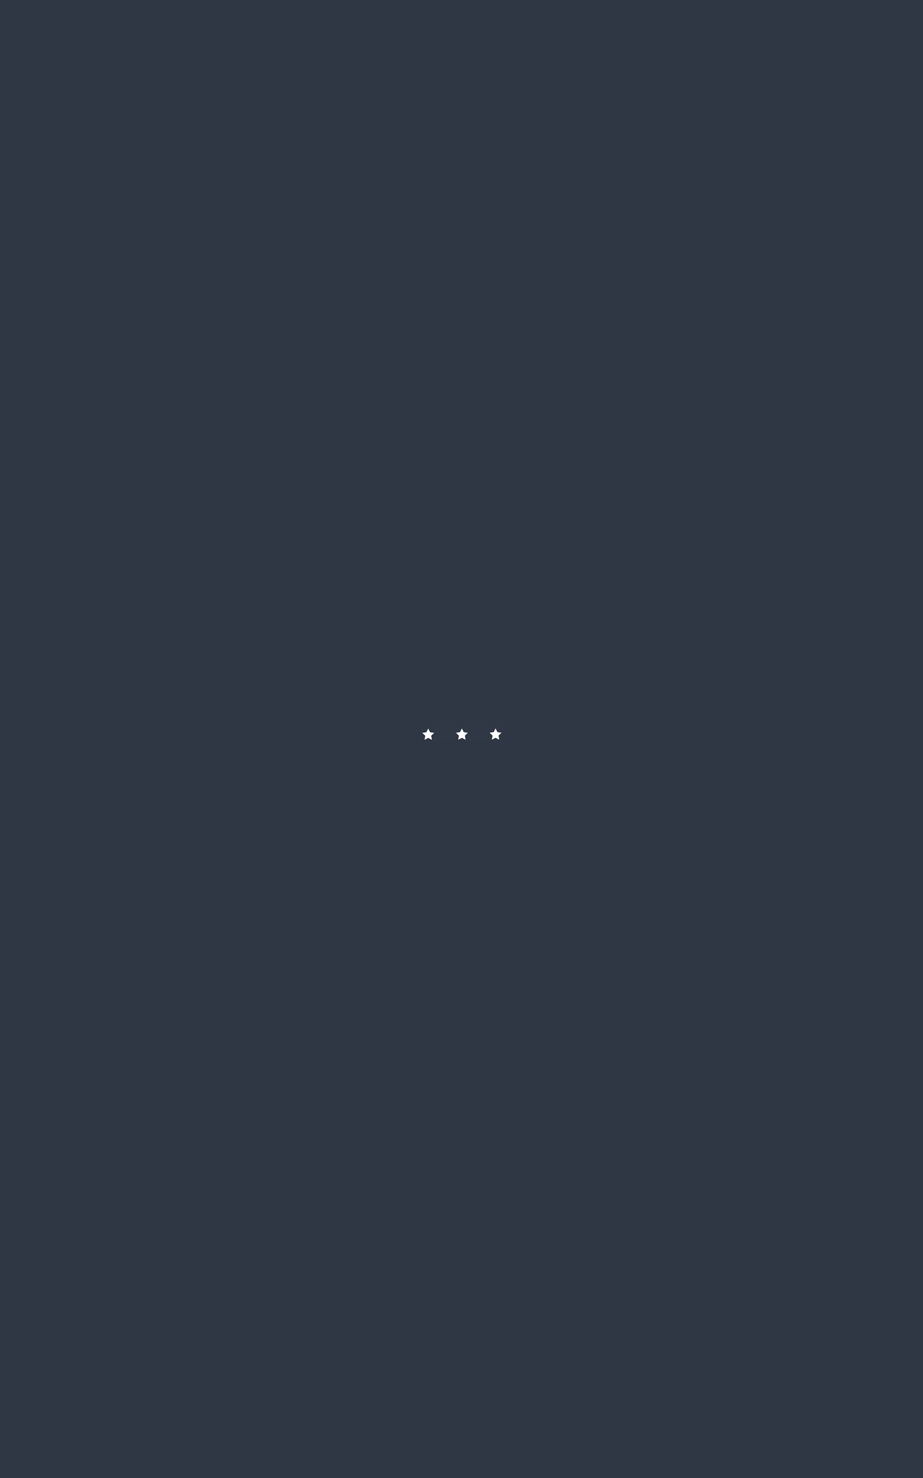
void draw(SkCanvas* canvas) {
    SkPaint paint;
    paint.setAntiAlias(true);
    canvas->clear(0xFF2F3745);
    canvas->drawImageRect(SkImages::DeferredFromEncodedData(SkData::MakeFromFileName("img1.png")), SkRect::MakeXYWH(421, 727, 81, 14), SkSamplingOptions());
}
